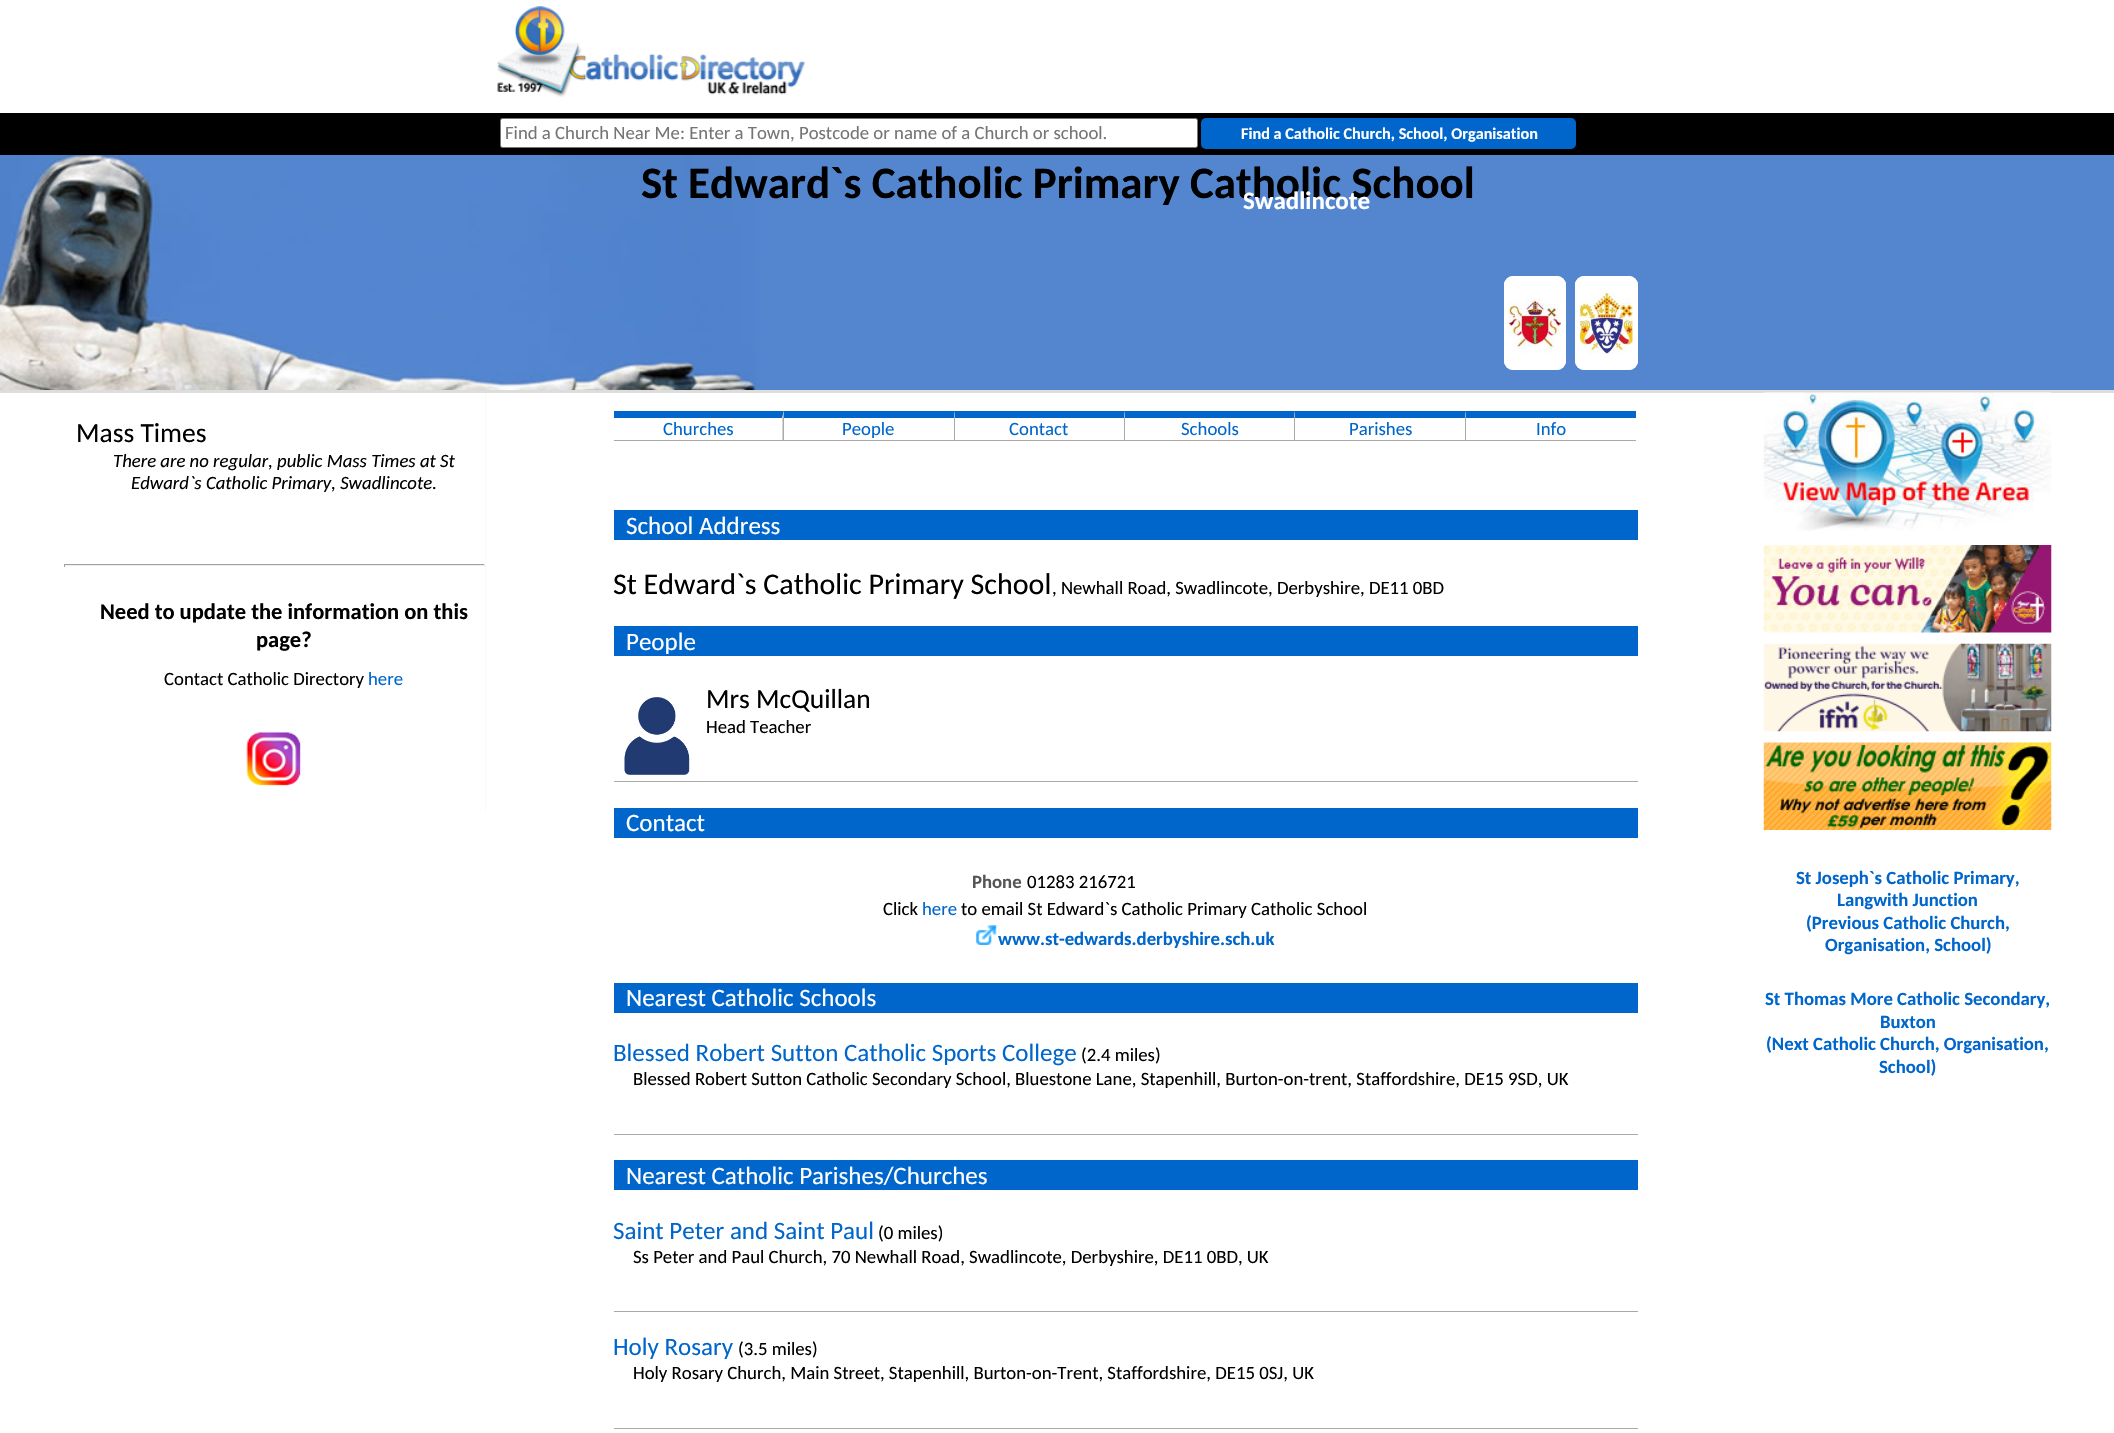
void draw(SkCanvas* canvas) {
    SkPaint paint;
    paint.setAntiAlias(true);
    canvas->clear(0xFFFFFFFF);
    canvas->drawImageRect(SkImages::DeferredFromEncodedData(SkData::MakeFromFileName("img1.png")), SkRect::MakeXYWH(497, 6, 309, 91), SkSamplingOptions());
    paint.setColor(0xFF000000);
    canvas->drawRect(SkRect::MakeXYWH(0, 113, 2114, 42), paint);
    paint.setColor(0xFFFFFFFF);
    canvas->drawRoundRect(SkRect::MakeXYWH(500.5f, 118.5f, 697, 29), 2, 2, paint);
    paint.setStyle(SkPaint::kStroke_Style);
    paint.setStrokeWidth(1);
    paint.setColor(0xFF767676);
    canvas->drawRoundRect(SkRect::MakeXYWH(500.5f, 118.5f, 697, 29), 2, 2, paint);
    SkFont font1(fontMgr->matchFamilyStyle("Carlito", SkFontStyle::Normal()), 18.75f);
    font1.setSubpixel(true);
    paint.setStyle(SkPaint::kFill_Style);
    paint.setColor(0xFF757575);
    canvas->drawString("Find a Church Near Me: Enter a Town, Postcode or name of a Church or school.", 505, 139, font1, paint);
    paint.setColor(0xFF0066CC);
    canvas->drawRoundRect(SkRect::MakeXYWH(1201, 118, 375, 31), 5, 5, paint);
    SkFont font2(fontMgr->matchFamilyStyle("Carlito", SkFontStyle::Bold()), 16.25f);
    font2.setSubpixel(true);
    paint.setColor(0xFFFFFFFF);
    canvas->drawString("Find a Catholic Church, School, Organisation", 1241, 139, font2, paint);
    paint.setColor(0xFF5486CF);
    canvas->drawRect(SkRect::MakeXYWH(1721, 155, 393, 235), paint);
    canvas->drawImageRect(SkImages::DeferredFromEncodedData(SkData::MakeFromFileName("img2.png")), SkRect::MakeXYWH(0, 155, 1722, 235), SkSamplingOptions());
    paint.setColor(0xFFDDDDDD);
    canvas->drawRect(SkRect::MakeXYWH(0, 390, 2114, 3), paint);
    SkFont font3(fontMgr->matchFamilyStyle("Carlito", SkFontStyle::Bold()), 45);
    font3.setSubpixel(true);
    paint.setColor(0xFF000000);
    canvas->drawString("St Edward`s Catholic Primary Catholic School", 641, 198, font3, paint);
    SkFont font4(fontMgr->matchFamilyStyle("Carlito", SkFontStyle::Bold()), 25);
    font4.setSubpixel(true);
    paint.setColor(0xFFFFFFFF);
    canvas->drawString("Swadlincote", 1243, 209, font4, paint);
    paint.setColor(0xFFF9F9F9);
    canvas->drawRect(SkRect::MakeXYWH(485, 393, 1, 418), paint);
    SkFont font5(fontMgr->matchFamilyStyle("Carlito", SkFontStyle::Normal()), 27.5f);
    font5.setSubpixel(true);
    paint.setColor(0xFF000000);
    canvas->drawString("Mass Times", 76, 442, font5, paint);
    SkFont font6(fontMgr->matchFamilyStyle("Carlito", SkFontStyle::Italic()), 18.75f);
    font6.setSubpixel(true);
    canvas->drawString("There are no regular, public Mass Times at St", 113, 467, font6, paint);
    canvas->drawString("Edward`s Catholic Primary, Swadlincote.", 131, 489, font6, paint);
    paint.setColor(0xFF9F9F9F);
    canvas->drawRect(SkRect::MakeXYWH(64, 564, 421, 1), paint);
    paint.setColor(0xFFEEEEEE);
    canvas->drawRect(SkRect::MakeXYWH(484, 564, 1, 3), paint);
    canvas->drawRect(SkRect::MakeXYWH(64, 565, 421, 1), paint);
    paint.setColor(0xFF9F9F9F);
    canvas->drawRect(SkRect::MakeXYWH(64, 564, 1, 3), paint);
    SkFont font7(fontMgr->matchFamilyStyle("Carlito", SkFontStyle::Bold()), 22.5f);
    font7.setSubpixel(true);
    paint.setColor(0xFF000000);
    canvas->drawString("Need to update the information on this", 100, 619, font7, paint);
    canvas->drawString("page?", 256, 647, font7, paint);
    canvas->drawString("Contact Catholic Directory", 164, 685, font1, paint);
    paint.setColor(0xFF0066CC);
    canvas->drawString("here", 368, 685, font1, paint);
    canvas->drawImageRect(SkImages::DeferredFromEncodedData(SkData::MakeFromFileName("img3.png")), SkRect::MakeXYWH(246, 731, 56, 55), SkSamplingOptions());
    paint.setColor(0xFFFFFFFF);
    canvas->drawRoundRect(SkRect::MakeXYWH(1504, 276, 62, 94), 9, 9, paint);
    canvas->drawImageRect(SkImages::DeferredFromEncodedData(SkData::MakeFromFileName("img4.png")), SkRect::MakeXYWH(1509, 298, 52, 56), SkSamplingOptions());
    paint.setStyle(SkPaint::kStroke_Style);
    paint.setStrokeWidth(5);
    canvas->drawRoundRect(SkRect::MakeXYWH(1506.5f, 278.5f, 57, 89), 6.5f, 6.5f, paint);
    paint.setStyle(SkPaint::kFill_Style);
    canvas->drawRoundRect(SkRect::MakeXYWH(1575, 276, 63, 94), 9, 9, paint);
    canvas->drawImageRect(SkImages::DeferredFromEncodedData(SkData::MakeFromFileName("img5.png")), SkRect::MakeXYWH(1580, 289, 53, 66), SkSamplingOptions());
    paint.setStyle(SkPaint::kStroke_Style);
    canvas->drawRoundRect(SkRect::MakeXYWH(1577.5f, 278.5f, 58, 89), 6.5f, 6.5f, paint);
    paint.setStyle(SkPaint::kFill_Style);
    paint.setColor(0xFF0066CC);
    canvas->drawPath(SkPathBuilder().moveTo(614, 411).lineTo(784, 411).lineTo(782, 418).lineTo(614, 418).close().detach(), paint);
    paint.setColor(0xFFAAAAAA);
    canvas->drawPath(SkPathBuilder().moveTo(784, 411).lineTo(784, 441).lineTo(782.5f, 440).lineTo(782.5f, 417.5f).close().detach(), paint);
    canvas->drawRect(SkRect::MakeXYWH(614, 440, 170, 1), paint);
    paint.setColor(0xFF0066CC);
    canvas->drawString("Churches", 663, 435, font1, paint);
    canvas->drawPath(SkPathBuilder().moveTo(784, 411).lineTo(955, 411).lineTo(954, 418).lineTo(784, 418).close().detach(), paint);
    paint.setColor(0xFFAAAAAA);
    canvas->drawPath(SkPathBuilder().moveTo(955, 411).lineTo(955, 441).lineTo(954, 440).lineTo(954, 417.5f).close().detach(), paint);
    canvas->drawRect(SkRect::MakeXYWH(784, 440, 171, 1), paint);
    paint.setColor(0xFF0066CC);
    canvas->drawString("People", 842, 435, font1, paint);
    canvas->drawPath(SkPathBuilder().moveTo(955, 411).lineTo(1125, 411).lineTo(1124, 418).lineTo(955, 418).close().detach(), paint);
    paint.setColor(0xFFAAAAAA);
    canvas->drawPath(SkPathBuilder().moveTo(1125, 411).lineTo(1125, 441).lineTo(1124, 440).lineTo(1124, 417.5f).close().detach(), paint);
    canvas->drawRect(SkRect::MakeXYWH(955, 440, 170, 1), paint);
    paint.setColor(0xFF0066CC);
    canvas->drawString("Contact", 1009, 435, font1, paint);
    canvas->drawPath(SkPathBuilder().moveTo(1125, 411).lineTo(1295, 411).lineTo(1294, 418).lineTo(1125, 418).close().detach(), paint);
    paint.setColor(0xFFAAAAAA);
    canvas->drawPath(SkPathBuilder().moveTo(1295, 411).lineTo(1295, 441).lineTo(1294, 440).lineTo(1294, 417.5f).close().detach(), paint);
    canvas->drawRect(SkRect::MakeXYWH(1125, 440, 170, 1), paint);
    paint.setColor(0xFF0066CC);
    canvas->drawString("Schools", 1181, 435, font1, paint);
    canvas->drawPath(SkPathBuilder().moveTo(1295, 411).lineTo(1466, 411).lineTo(1465, 418).lineTo(1295, 418).close().detach(), paint);
    paint.setColor(0xFFAAAAAA);
    canvas->drawPath(SkPathBuilder().moveTo(1466, 411).lineTo(1466, 441).lineTo(1465, 440).lineTo(1465, 417.5f).close().detach(), paint);
    canvas->drawRect(SkRect::MakeXYWH(1295, 440, 341, 1), paint);
    paint.setColor(0xFF0066CC);
    canvas->drawString("Parishes", 1349, 435, font1, paint);
    canvas->drawRect(SkRect::MakeXYWH(1466, 411, 170, 7), paint);
    canvas->drawString("Info", 1536, 435, font1, paint);
    canvas->drawRect(SkRect::MakeXYWH(614, 510, 1024, 30), paint);
    SkFont font8(fontMgr->matchFamilyStyle("Carlito", SkFontStyle::Normal()), 25);
    font8.setSubpixel(true);
    paint.setColor(0xFFFFFFFF);
    canvas->drawString("School Address", 626, 534, font8, paint);
    SkFont font9(fontMgr->matchFamilyStyle("Carlito", SkFontStyle::Normal()), 30);
    font9.setSubpixel(true);
    paint.setColor(0xFF000000);
    canvas->drawString("St Edward`s Catholic Primary School", 613, 594, font9, paint);
    canvas->drawString(", Newhall Road, Swadlincote, Derbyshire, DE11 0BD", 1052, 594, font1, paint);
    paint.setColor(0xFF0066CC);
    canvas->drawRect(SkRect::MakeXYWH(614, 626, 1024, 30), paint);
    paint.setColor(0xFFFFFFFF);
    canvas->drawString("People", 626, 650, font8, paint);
    paint.setColor(0xFFAAAAAA);
    canvas->drawRect(SkRect::MakeXYWH(614, 781, 1024, 1), paint);
    canvas->drawImageRect(SkImages::DeferredFromEncodedData(SkData::MakeFromFileName("img6.png")), SkRect::MakeXYWH(624, 697, 66, 78), SkSamplingOptions());
    paint.setColor(0xFF000000);
    canvas->drawString("Mrs McQuillan", 706, 708, font5, paint);
    canvas->drawString("Head Teacher", 706, 733, font1, paint);
    paint.setColor(0xFF0066CC);
    canvas->drawRect(SkRect::MakeXYWH(614, 808, 1024, 30), paint);
    paint.setColor(0xFFFFFFFF);
    canvas->drawString("Contact", 626, 831, font8, paint);
    SkFont font10(fontMgr->matchFamilyStyle("Carlito", SkFontStyle::Bold()), 18.75f);
    font10.setSubpixel(true);
    paint.setColor(0xFF555555);
    canvas->drawString("Phone", 972, 888, font10, paint);
    paint.setColor(0xFF000000);
    canvas->drawString("01283 216721", 1027, 888, font1, paint);
    canvas->drawString("Click", 883, 915, font1, paint);
    paint.setColor(0xFF0066CC);
    canvas->drawString("here", 922, 915, font1, paint);
    paint.setColor(0xFF000000);
    canvas->drawString("to email St Edward`s Catholic Primary Catholic School", 961, 915, font1, paint);
    canvas->drawImageRect(SkImages::DeferredFromEncodedData(SkData::MakeFromFileName("img7.png")), SkRect::MakeXYWH(976, 925, 21, 20), SkSamplingOptions());
    paint.setColor(0xFF0066CC);
    canvas->drawString("www.st-edwards.derbyshire.sch.uk", 998, 945, font10, paint);
    canvas->drawRect(SkRect::MakeXYWH(614, 983, 1024, 30), paint);
    paint.setColor(0xFFFFFFFF);
    canvas->drawString("Nearest Catholic Schools", 626, 1006, font8, paint);
    paint.setColor(0xFFAAAAAA);
    canvas->drawRect(SkRect::MakeXYWH(614, 1134, 1024, 1), paint);
    paint.setColor(0xFF0066CC);
    canvas->drawString("Blessed Robert Sutton Catholic Sports College", 613, 1061, font8, paint);
    paint.setColor(0xFF000000);
    canvas->drawString("(2.4 miles)", 1081, 1061, font1, paint);
    canvas->drawString("Blessed Robert Sutton Catholic Secondary School, Bluestone Lane, Stapenhill, Burton-on-trent, Staffordshire, DE15 9SD, UK", 633, 1085, font1, paint);
    paint.setColor(0xFF0066CC);
    canvas->drawRect(SkRect::MakeXYWH(614, 1160, 1024, 30), paint);
    paint.setColor(0xFFFFFFFF);
    canvas->drawString("Nearest Catholic Parishes/Churches", 626, 1184, font8, paint);
    paint.setColor(0xFFAAAAAA);
    canvas->drawRect(SkRect::MakeXYWH(614, 1311, 1024, 1), paint);
    paint.setColor(0xFF0066CC);
    canvas->drawString("Saint Peter and Saint Paul", 613, 1239, font8, paint);
    paint.setColor(0xFF000000);
    canvas->drawString("(0 miles)", 878, 1239, font1, paint);
    canvas->drawString("Ss Peter and Paul Church, 70 Newhall Road, Swadlincote, Derbyshire, DE11 0BD, UK", 633, 1263, font1, paint);
    paint.setColor(0xFFAAAAAA);
    canvas->drawRect(SkRect::MakeXYWH(614, 1428, 1024, 1), paint);
    paint.setColor(0xFF0066CC);
    canvas->drawString("Holy Rosary", 613, 1355, font8, paint);
    paint.setColor(0xFF000000);
    canvas->drawString("(3.5 miles)", 738, 1355, font1, paint);
    canvas->drawString("Holy Rosary Church, Main Street, Stapenhill, Burton-on-Trent, Staffordshire, DE15 0SJ, UK", 633, 1379, font1, paint);
    canvas->drawImageRect(SkImages::DeferredFromEncodedData(SkData::MakeFromFileName("img8.png")), SkRect::MakeXYWH(1763, 392, 289, 139), SkSamplingOptions());
    canvas->drawImageRect(SkImages::DeferredFromEncodedData(SkData::MakeFromFileName("img9.png")), SkRect::MakeXYWH(1763, 545, 289, 88), SkSamplingOptions());
    canvas->drawImageRect(SkImages::DeferredFromEncodedData(SkData::MakeFromFileName("img10.png")), SkRect::MakeXYWH(1763, 643, 289, 89), SkSamplingOptions());
    canvas->drawImageRect(SkImages::DeferredFromEncodedData(SkData::MakeFromFileName("img11.png")), SkRect::MakeXYWH(1763, 742, 289, 88), SkSamplingOptions());
    paint.setColor(0xFF0066CC);
    canvas->drawString("St Joseph`s Catholic Primary,", 1796, 884, font10, paint);
    canvas->drawString("Langwith Junction", 1837, 906, font10, paint);
    canvas->drawString("(Previous Catholic Church,", 1806, 929, font10, paint);
    canvas->drawString("Organisation, School)", 1825, 951, font10, paint);
    canvas->drawString("St Thomas More Catholic Secondary,", 1765, 1005, font10, paint);
    canvas->drawString("Buxton", 1880, 1028, font10, paint);
    canvas->drawString("(Next Catholic Church, Organisation,", 1766, 1050, font10, paint);
    canvas->drawString("School)", 1879, 1073, font10, paint);
}
